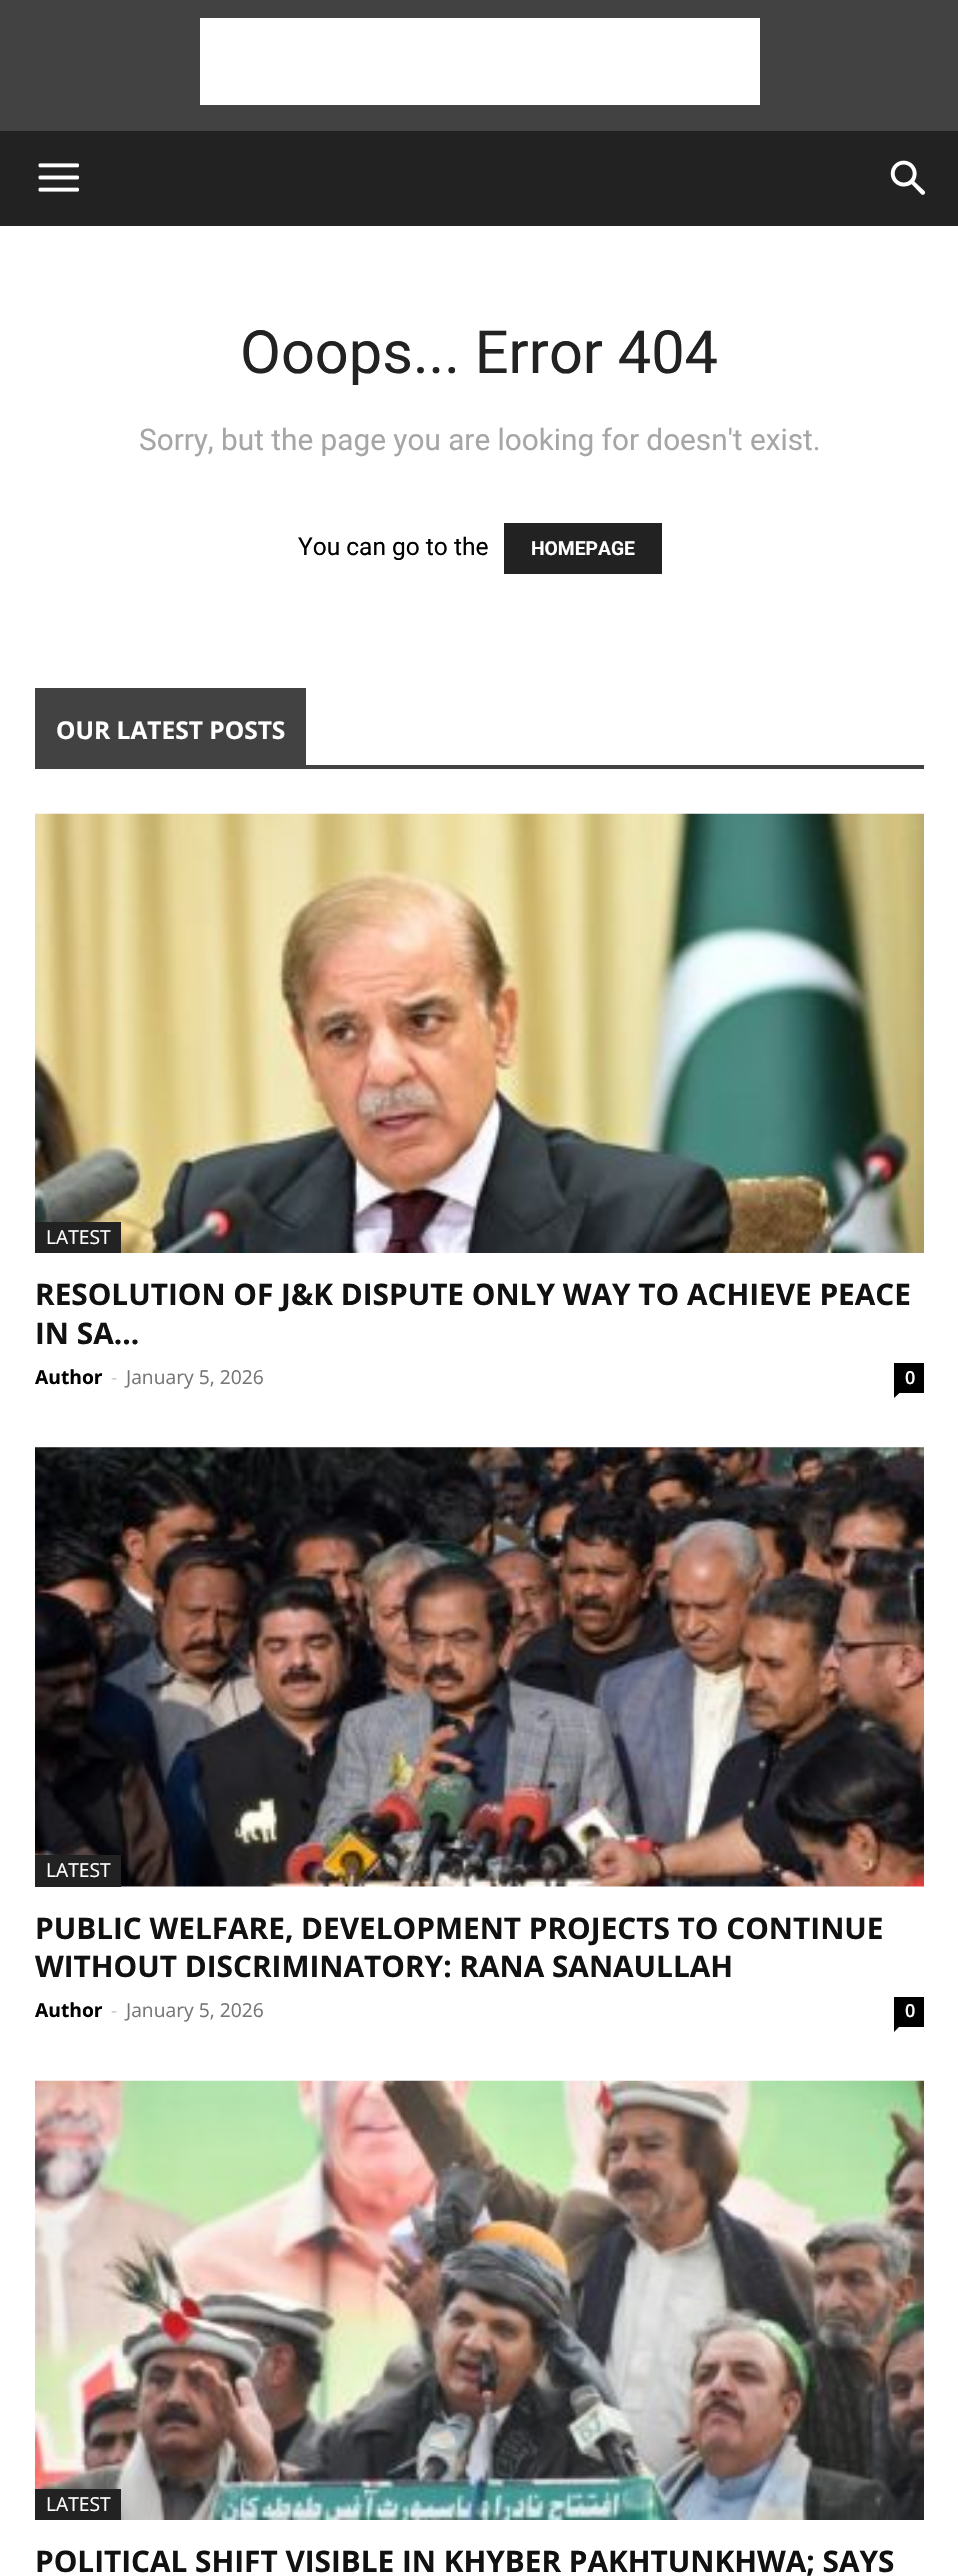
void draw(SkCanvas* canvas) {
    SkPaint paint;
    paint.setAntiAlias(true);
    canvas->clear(0xFFFFFFFF);
    paint.setColor(0xFF424242);
    canvas->drawRect(SkRect::MakeXYWH(0, 0, 958, 131), paint);
    paint.setColor(0xFFFFFFFF);
    canvas->drawRect(SkRect::MakeXYWH(200, 18, 560, 87), paint);
    paint.setColor(0xFF222222);
    canvas->drawRect(SkRect::MakeXYWH(0, 131, 958, 95), paint);
    canvas->drawImageRect(SkImages::DeferredFromEncodedData(SkData::MakeFromFileName("img1.png")), SkRect::MakeXYWH(38, 163, 41, 29), SkSamplingOptions());
    canvas->drawImageRect(SkImages::DeferredFromEncodedData(SkData::MakeFromFileName("img2.png")), SkRect::MakeXYWH(890, 160, 36, 35), SkSamplingOptions());
    SkFont font1(fontMgr->matchFamilyStyle("Roboto", SkFontStyle::Normal()), 59.5f);
    font1.setSubpixel(true);
    canvas->drawString("Ooops... Error 404", 240, 373, font1, paint);
    SkFont font2(fontMgr->matchFamilyStyle("Roboto", SkFontStyle::Normal()), 29.75f);
    font2.setSubpixel(true);
    paint.setColor(0xFFA6A6A6);
    canvas->drawString("Sorry, but the page you are looking for doesn't exist.", 139, 450, font2, paint);
    SkFont font3(fontMgr->matchFamilyStyle("Roboto", SkFontStyle::Normal()), 24.5f);
    font3.setSubpixel(true);
    paint.setColor(0xFF000000);
    canvas->drawString("You can go to the", 298, 555, font3, paint);
    paint.setColor(0xFF222222);
    canvas->drawRect(SkRect::MakeXYWH(504, 523, 158, 51), paint);
    SkFont font4(fontMgr->matchFamilyStyle("Roboto", SkFontStyle::Bold()), 19.25f);
    font4.setSubpixel(true);
    paint.setColor(0xFFFFFFFF);
    canvas->drawString("HOMEPAGE", 531, 555, font4, paint);
    paint.setColor(0xFF424242);
    canvas->drawRect(SkRect::MakeXYWH(35, 765, 889, 4), paint);
    canvas->drawRect(SkRect::MakeXYWH(35, 688, 271, 77), paint);
    SkFont font5(fontMgr->matchFamilyStyle("Open Sans", SkFontStyle::Bold()), 24.5f);
    font5.setSubpixel(true);
    paint.setColor(0xFFFFFFFF);
    canvas->drawString("OUR LATEST POSTS", 56, 739, font5, paint);
    canvas->drawImageRect(SkImages::DeferredFromEncodedData(SkData::MakeFromFileName("img3.png")), SkRect::MakeXYWH(35, 813, 889, 440), SkSamplingOptions());
    paint.setColor(0xFF222222);
    canvas->drawRect(SkRect::MakeXYWH(35, 1222, 86, 31), paint);
    SkFont font6(fontMgr->matchFamilyStyle("Open Sans", SkFontStyle::Normal()), 19.25f);
    font6.setSubpixel(true);
    paint.setColor(0xFFFFFFFF);
    canvas->drawString("LATEST", 46, 1244, font6, paint);
    SkFont font7(fontMgr->matchFamilyStyle("Open Sans", SkFontStyle::Bold()), 29.75f);
    font7.setSubpixel(true);
    paint.setColor(0xFF111111);
    canvas->drawString("RESOLUTION OF J&K DISPUTE ONLY WAY TO ACHIEVE PEACE", 35, 1305, font7, paint);
    canvas->drawString("IN SA...", 35, 1344, font7, paint);
    SkFont font8(fontMgr->matchFamilyStyle("Open Sans", SkFontStyle::Bold()), 19.25f);
    font8.setSubpixel(true);
    paint.setColor(0xFF000000);
    canvas->drawString("Author", 35, 1384, font8, paint);
    paint.setColor(0xFFCCCCCC);
    canvas->drawString("-", 111, 1384, font6, paint);
    paint.setColor(0xFF767676);
    canvas->drawString("January 5, 2026", 126, 1384, font6, paint);
    paint.setColor(0xFF000000);
    canvas->drawRect(SkRect::MakeXYWH(894, 1363, 30, 30), paint);
    SkFont font9(fontMgr->matchFamilyStyle("Open Sans", SkFontStyle(600, SkFontStyle::kNormal_Width, SkFontStyle::kUpright_Slant)), 18);
    font9.setSubpixel(true);
    paint.setColor(0xFFFFFFFF);
    canvas->drawString("0", 905, 1384, font9, paint);
    paint.setColor(0xFF000000);
    canvas->drawPath(SkPathBuilder().moveTo(894, 1393).lineTo(899.5f, 1393).lineTo(894, 1398).close().detach(), paint);
    canvas->drawImageRect(SkImages::DeferredFromEncodedData(SkData::MakeFromFileName("img4.png")), SkRect::MakeXYWH(35, 1447, 889, 440), SkSamplingOptions());
    paint.setColor(0xFF222222);
    canvas->drawRect(SkRect::MakeXYWH(35, 1855, 86, 32), paint);
    paint.setColor(0xFFFFFFFF);
    canvas->drawString("LATEST", 46, 1877, font6, paint);
    paint.setColor(0xFF111111);
    canvas->drawString("PUBLIC WELFARE, DEVELOPMENT PROJECTS TO CONTINUE", 35, 1939, font7, paint);
    canvas->drawString("WITHOUT DISCRIMINATORY: RANA SANAULLAH", 35, 1977, font7, paint);
    paint.setColor(0xFF000000);
    canvas->drawString("Author", 35, 2017, font8, paint);
    paint.setColor(0xFFCCCCCC);
    canvas->drawString("-", 111, 2017, font6, paint);
    paint.setColor(0xFF767676);
    canvas->drawString("January 5, 2026", 126, 2017, font6, paint);
    paint.setColor(0xFF000000);
    canvas->drawRect(SkRect::MakeXYWH(894, 1997, 30, 30), paint);
    paint.setColor(0xFFFFFFFF);
    canvas->drawString("0", 905, 2017, font9, paint);
    paint.setColor(0xFF000000);
    canvas->drawPath(SkPathBuilder().moveTo(894, 2026.5f).lineTo(899.5f, 2026.5f).lineTo(894, 2032).close().detach(), paint);
    canvas->drawImageRect(SkImages::DeferredFromEncodedData(SkData::MakeFromFileName("img5.png")), SkRect::MakeXYWH(35, 2080, 889, 440), SkSamplingOptions());
    paint.setColor(0xFF222222);
    canvas->drawRect(SkRect::MakeXYWH(35, 2489, 86, 31), paint);
    paint.setColor(0xFFFFFFFF);
    canvas->drawString("LATEST", 46, 2511, font6, paint);
    paint.setColor(0xFF111111);
    canvas->drawString("POLITICAL SHIFT VISIBLE IN KHYBER PAKHTUNKHWA; SAYS", 35, 2572, font7, paint);
}
